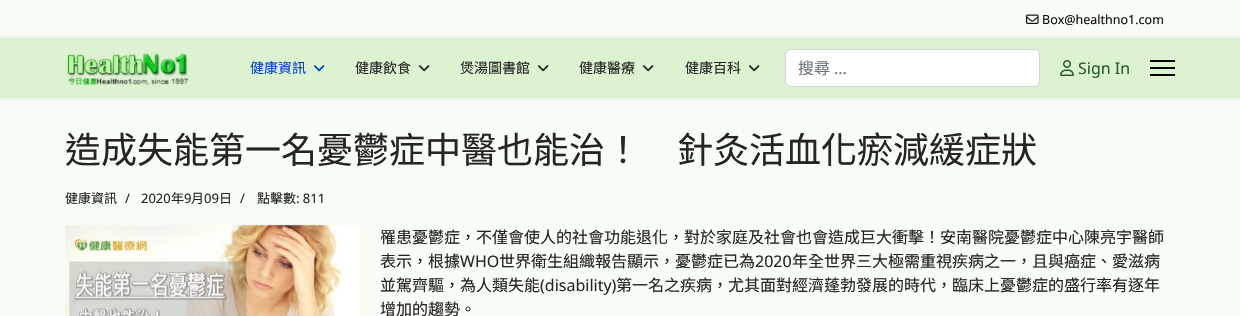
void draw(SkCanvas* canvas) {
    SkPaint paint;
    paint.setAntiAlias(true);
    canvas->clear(0xFFF7FCF4);
    canvas->drawImageRect(SkImages::DeferredFromEncodedData(SkData::MakeFromFileName("img1.png")), SkRect::MakeXYWH(1026, 14, 13, 10), SkSamplingOptions());
    SkFont font1(fontMgr->matchFamilyStyle("Noto Sans", SkFontStyle::Normal()), 12.5f);
    font1.setSubpixel(true);
    paint.setColor(0xFF0F0E0E);
    canvas->drawString("Box@healthno1.com", 1042, 24, font1, paint);
    paint.setColor(0x1A000000);
    paint.setMaskFilter(SkMaskFilter::MakeBlur(kNormal_SkBlurStyle, 2));
    canvas->drawRect(SkRect::MakeXYWH(0, 38, 1240, 60), paint);
    paint.setMaskFilter(nullptr);
    paint.setColor(0xFFDCF2D0);
    canvas->drawRect(SkRect::MakeXYWH(0, 38, 1240, 60), paint);
    canvas->drawImageRect(SkImages::DeferredFromEncodedData(SkData::MakeFromFileName("img2.png")), SkRect::MakeXYWH(67, 53, 122, 32), SkSamplingOptions());
    SkFont font2(fontMgr->matchFamilyStyle("Noto Sans CJK TC", SkFontStyle::Normal()), 14);
    font2.setSubpixel(true);
    paint.setColor(0xFF0345BF);
    canvas->drawString("健康資訊", 250, 73, font2, paint);
    canvas->drawImageRect(SkImages::DeferredFromEncodedData(SkData::MakeFromFileName("img3.png")), SkRect::MakeXYWH(314, 65, 11, 7), SkSamplingOptions());
    paint.setColor(0xFF252525);
    canvas->drawString("健康飲食", 355, 73, font2, paint);
    canvas->drawImageRect(SkImages::DeferredFromEncodedData(SkData::MakeFromFileName("img4.png")), SkRect::MakeXYWH(419, 65, 11, 7), SkSamplingOptions());
    canvas->drawString("煲湯圖書館", 460, 73, font2, paint);
    canvas->drawImageRect(SkImages::DeferredFromEncodedData(SkData::MakeFromFileName("img4.png")), SkRect::MakeXYWH(538, 65, 11, 7), SkSamplingOptions());
    canvas->drawString("健康醫療", 579, 73, font2, paint);
    canvas->drawImageRect(SkImages::DeferredFromEncodedData(SkData::MakeFromFileName("img4.png")), SkRect::MakeXYWH(643, 65, 11, 7), SkSamplingOptions());
    canvas->drawString("健康百科", 685, 73, font2, paint);
    canvas->drawImageRect(SkImages::DeferredFromEncodedData(SkData::MakeFromFileName("img4.png")), SkRect::MakeXYWH(749, 65, 11, 7), SkSamplingOptions());
    paint.setColor(0xFFFFFFFF);
    canvas->drawRoundRect(SkRect::MakeXYWH(785.5f, 49.5f, 254, 37), 5.5f, 5.5f, paint);
    paint.setStyle(SkPaint::kStroke_Style);
    paint.setStrokeWidth(1);
    paint.setColor(0xFFCED4DA);
    canvas->drawRoundRect(SkRect::MakeXYWH(785.5f, 49.5f, 254, 37), 5.5f, 5.5f, paint);
    SkFont font3(fontMgr->matchFamilyStyle("Noto Sans CJK TC", SkFontStyle::Normal()), 16);
    font3.setSubpixel(true);
    paint.setStyle(SkPaint::kFill_Style);
    paint.setColor(0xFF6C757D);
    canvas->drawString("搜尋", 798, 74, font3, paint);
    SkFont font4(fontMgr->matchFamilyStyle("Noto Sans", SkFontStyle::Normal()), 16);
    font4.setSubpixel(true);
    canvas->drawString("...", 834, 74, font4, paint);
    canvas->drawImageRect(SkImages::DeferredFromEncodedData(SkData::MakeFromFileName("img5.png")), SkRect::MakeXYWH(1060, 60, 14, 16), SkSamplingOptions());
    paint.setColor(0xFF285C28);
    canvas->drawString("Sign In", 1078, 74, font4, paint);
    paint.setColor(0xFF000000);
    canvas->drawRect(SkRect::MakeXYWH(1150, 60, 25, 2), paint);
    canvas->drawRect(SkRect::MakeXYWH(1150, 67, 25, 2), paint);
    canvas->drawRect(SkRect::MakeXYWH(1150, 74, 25, 2), paint);
    SkFont font5(fontMgr->matchFamilyStyle("Noto Sans CJK TC", SkFontStyle::Normal()), 36);
    font5.setSubpixel(true);
    paint.setColor(0xFF252525);
    canvas->drawString("造成失能第一名憂鬱症中醫也能治！　針灸活血化瘀減緩症狀", 65, 163, font5, paint);
    SkFont font6(fontMgr->matchFamilyStyle("Noto Sans CJK TC", SkFontStyle::Normal()), 13);
    font6.setSubpixel(true);
    canvas->drawString("健康資訊", 65, 203, font6, paint);
    SkFont font7(fontMgr->matchFamilyStyle("Noto Sans", SkFontStyle::Normal()), 13);
    font7.setSubpixel(true);
    canvas->drawString("/", 125, 203, font7, paint);
    canvas->drawString("2020", 141, 203, font7, paint);
    canvas->drawString("年", 171, 203, font6, paint);
    canvas->drawString("9", 184, 203, font7, paint);
    canvas->drawString("月", 191, 203, font6, paint);
    canvas->drawString("09", 204, 203, font7, paint);
    canvas->drawString("日", 219, 203, font6, paint);
    canvas->drawString("/", 240, 203, font7, paint);
    canvas->drawString("點擊數", 257, 203, font6, paint);
    canvas->drawString(": 811", 296, 203, font7, paint);
    canvas->drawImageRect(SkImages::DeferredFromEncodedData(SkData::MakeFromFileName("img6.png")), SkRect::MakeXYWH(65, 224, 295, 92), SkSamplingOptions());
    canvas->drawString("罹患憂鬱症，不僅會使人的社會功能退化，對於家庭及社會也會造成巨大衝擊！安南醫院憂鬱症中心陳亮宇醫師", 380, 243, font3, paint);
    canvas->drawString("表示，根據", 380, 267, font3, paint);
    canvas->drawString("WHO", 460, 267, font4, paint);
    canvas->drawString("世界衛生組織報告顯示，憂鬱症已為", 499, 267, font3, paint);
    canvas->drawString("2020", 755, 267, font4, paint);
    canvas->drawString("年全世界三大極需重視疾病之一，且與癌症、愛滋病", 792, 267, font3, paint);
    canvas->drawString("並駕齊驅，為人類失能", 380, 291, font3, paint);
    canvas->drawString("(disability)", 540, 291, font4, paint);
    canvas->drawString("第一名之疾病，尤其面對經濟蓬勃發展的時代，臨床上憂鬱症的盛行率有逐年", 616, 291, font3, paint);
    canvas->drawString("增加的趨勢。", 380, 315, font3, paint);
}
